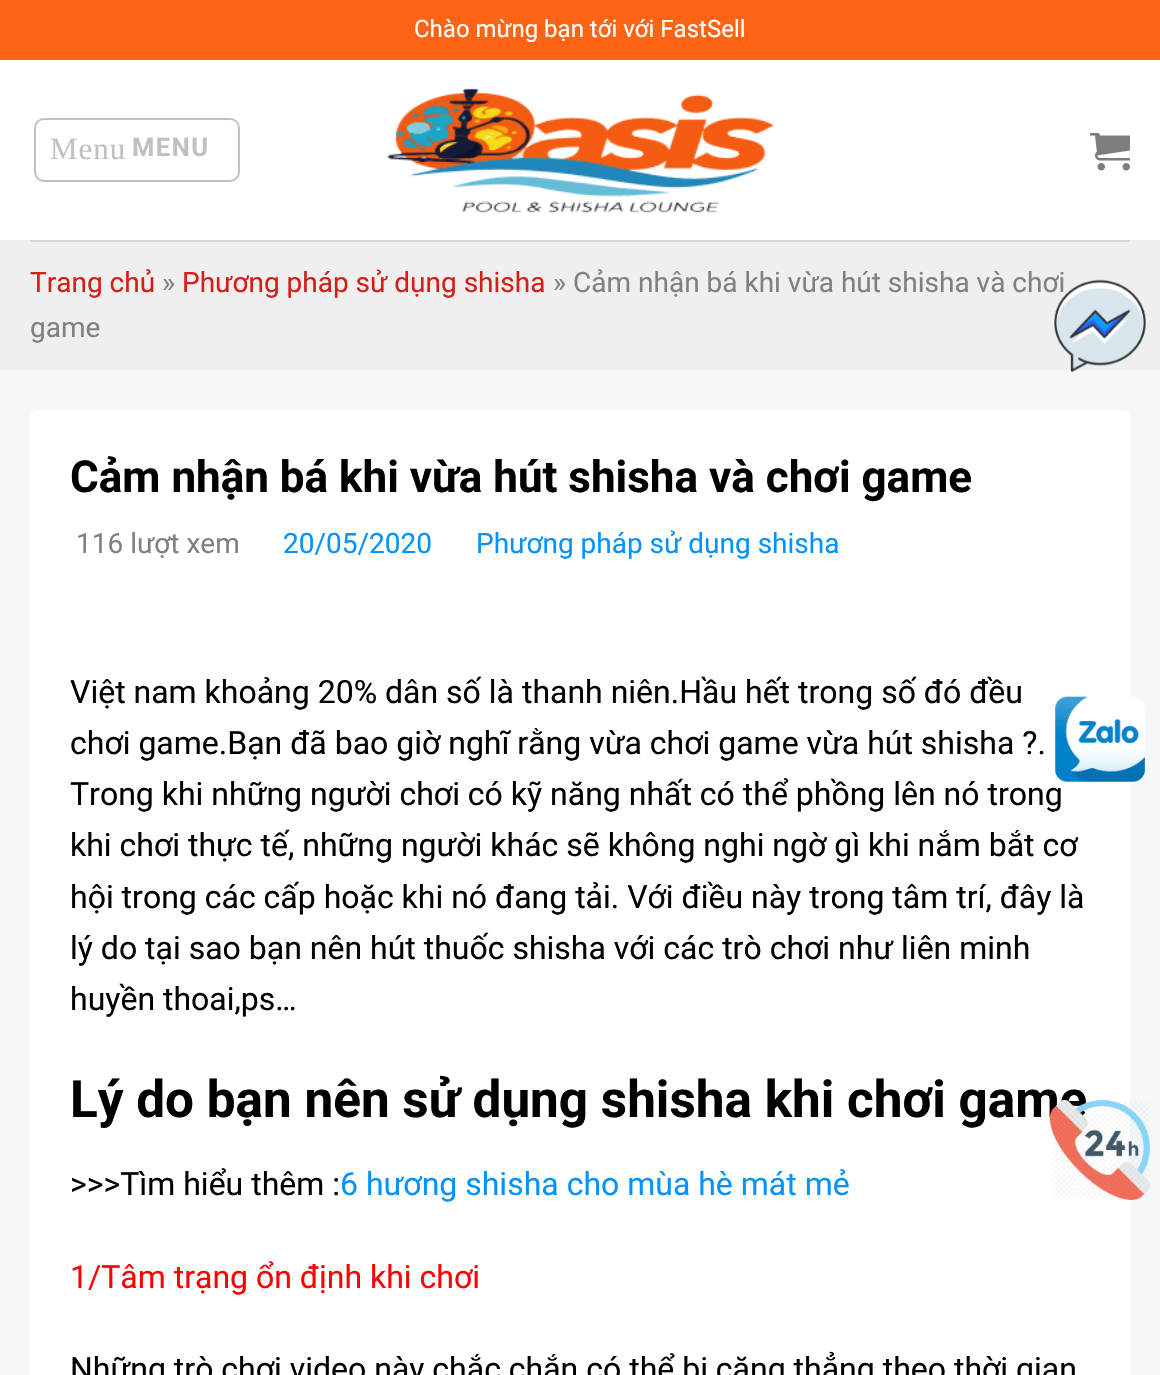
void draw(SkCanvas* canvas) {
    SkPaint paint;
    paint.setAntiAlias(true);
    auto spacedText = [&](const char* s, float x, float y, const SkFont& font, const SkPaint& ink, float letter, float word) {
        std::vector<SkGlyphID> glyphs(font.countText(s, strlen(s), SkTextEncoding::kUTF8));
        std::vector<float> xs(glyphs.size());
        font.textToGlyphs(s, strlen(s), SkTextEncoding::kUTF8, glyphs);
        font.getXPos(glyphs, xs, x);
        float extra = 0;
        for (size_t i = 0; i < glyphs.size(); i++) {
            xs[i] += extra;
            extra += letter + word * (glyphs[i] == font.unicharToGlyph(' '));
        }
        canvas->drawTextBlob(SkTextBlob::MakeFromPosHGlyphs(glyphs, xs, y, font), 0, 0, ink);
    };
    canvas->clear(0xFFFFFFFF);
    paint.setColor(0xFFFA6414);
    canvas->drawRect(SkRect::MakeXYWH(0, 0, 1160, 60), paint);
    SkFont font1(fontMgr->matchFamilyStyle("Roboto", SkFontStyle::Normal()), 24);
    font1.setSubpixel(true);
    paint.setColor(0xFFFFFFFF);
    canvas->drawString("Chào mừng bạn tới với FastSell", 414, 37, font1, paint);
    paint.setStyle(SkPaint::kStroke_Style);
    paint.setStrokeWidth(2);
    paint.setColor(0xFFC0C0C0);
    canvas->drawRoundRect(SkRect::MakeXYWH(35, 119, 204, 62), 9, 9, paint);
    SkFont font2(fontMgr->matchFamilyStyle("Liberation Serif", SkFontStyle::Normal()), 31);
    font2.setSubpixel(true);
    paint.setStyle(SkPaint::kFill_Style);
    spacedText("Menu", 50, 159, font2, paint, 1, 0);
    SkFont font3(fontMgr->matchFamilyStyle("Roboto", SkFontStyle::Bold()), 25.5f);
    font3.setSubpixel(true);
    spacedText("MENU", 132, 156, font3, paint, 1.5f, 0);
    canvas->drawImageRect(SkImages::DeferredFromEncodedData(SkData::MakeFromFileName("img1.png")), SkRect::MakeXYWH(387, 88, 387, 125), SkSamplingOptions());
    canvas->drawImageRect(SkImages::DeferredFromEncodedData(SkData::MakeFromFileName("img2.png")), SkRect::MakeXYWH(1090, 133, 40, 38), SkSamplingOptions());
    paint.setColor(0xFFEFEFEF);
    canvas->drawRect(SkRect::MakeXYWH(0, 240, 1160, 130), paint);
    paint.setColor(0xFFD7D7D7);
    canvas->drawRect(SkRect::MakeXYWH(30, 240, 1100, 2), paint);
    paint.setColor(0xFFF4F8FA);
    canvas->drawRect(SkRect::MakeXYWH(0, 370, 1160, 1005), paint);
    SkFont font4(fontMgr->matchFamilyStyle("Roboto", SkFontStyle::Normal()), 28);
    font4.setSubpixel(true);
    paint.setColor(0xFFD51E16);
    canvas->drawString("Trang chủ", 30, 292, font4, paint);
    paint.setColor(0xFF808080);
    canvas->drawString("»", 162, 292, font4, paint);
    paint.setColor(0xFFD51E16);
    canvas->drawString("Phương pháp sử dụng shisha", 182, 292, font4, paint);
    paint.setColor(0xFF808080);
    canvas->drawString("» Cảm nhận bá khi vừa hút shisha và chơi", 553, 292, font4, paint);
    canvas->drawString("game", 30, 337, font4, paint);
    paint.setColor(0xFFFFFFFF);
    canvas->drawRoundRect(SkRect::MakeXYWH(30, 410, 1100, 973), 8, 8, paint);
    SkFont font5(fontMgr->matchFamilyStyle("Roboto", SkFontStyle::Bold()), 44);
    font5.setSubpixel(true);
    paint.setColor(0xFF000000);
    canvas->drawString("Cảm nhận bá khi vừa hút shisha và chơi game", 70, 492, font5, paint);
    paint.setColor(0xFF808080);
    canvas->drawString("116 lượt xem", 76, 553, font4, paint);
    paint.setColor(0xFF0092FF);
    canvas->drawString("20/05/2020", 283, 553, font4, paint);
    canvas->drawString("Phương pháp sử dụng shisha", 476, 553, font4, paint);
    SkFont font6(fontMgr->matchFamilyStyle("Roboto", SkFontStyle::Normal()), 32);
    font6.setSubpixel(true);
    paint.setColor(0xFF000000);
    canvas->drawString("Việt nam khoảng 20% dân số là thanh niên.Hầu hết trong số đó đều", 70, 703, font6, paint);
    canvas->drawString("chơi game.Bạn đã bao giờ nghĩ rằng vừa chơi game vừa hút shisha ?.", 70, 754, font6, paint);
    canvas->drawString("Trong khi những người chơi có kỹ năng nhất có thể phồng lên nó trong", 70, 805, font6, paint);
    canvas->drawString("khi chơi thực tế, những người khác sẽ không nghi ngờ gì khi nắm bắt cơ", 70, 856, font6, paint);
    canvas->drawString("hội trong các cấp hoặc khi nó đang tải. Với điều này trong tâm trí, đây là", 70, 908, font6, paint);
    canvas->drawString("lý do tại sao bạn nên hút thuốc shisha với các trò chơi như liên minh", 70, 959, font6, paint);
    canvas->drawString("huyền thoai,ps…", 70, 1010, font6, paint);
    SkFont font7(fontMgr->matchFamilyStyle("Roboto", SkFontStyle::Bold()), 51.25f);
    font7.setSubpixel(true);
    canvas->drawString("Lý do bạn nên sử dụng shisha khi chơi game", 70, 1117, font7, paint);
    canvas->drawString(">>>Tìm hiểu thêm :", 70, 1195, font6, paint);
    paint.setColor(0xFF0092FF);
    canvas->drawString("6 hương shisha cho mùa hè mát mẻ", 340, 1195, font6, paint);
    paint.setColor(0xFFFF0000);
    canvas->drawString("1/Tâm trạng ổn định khi chơi", 70, 1288, font6, paint);
    paint.setColor(0xFF000000);
    canvas->drawString("Những trò chơi video này chắc chắn có thể bị căng thẳng theo thời gian", 70, 1380, font6, paint);
    canvas->drawImageRect(SkImages::DeferredFromEncodedData(SkData::MakeFromFileName("img3.png")), SkRect::MakeXYWH(1054, 279, 92, 94), SkSamplingOptions());
    canvas->drawImageRect(SkImages::DeferredFromEncodedData(SkData::MakeFromFileName("img4.png")), SkRect::MakeXYWH(1055, 696, 90, 86), SkSamplingOptions());
    canvas->drawImageRect(SkImages::DeferredFromEncodedData(SkData::MakeFromFileName("img5.png")), SkRect::MakeXYWH(1050, 1100, 100, 100), SkSamplingOptions());
}
